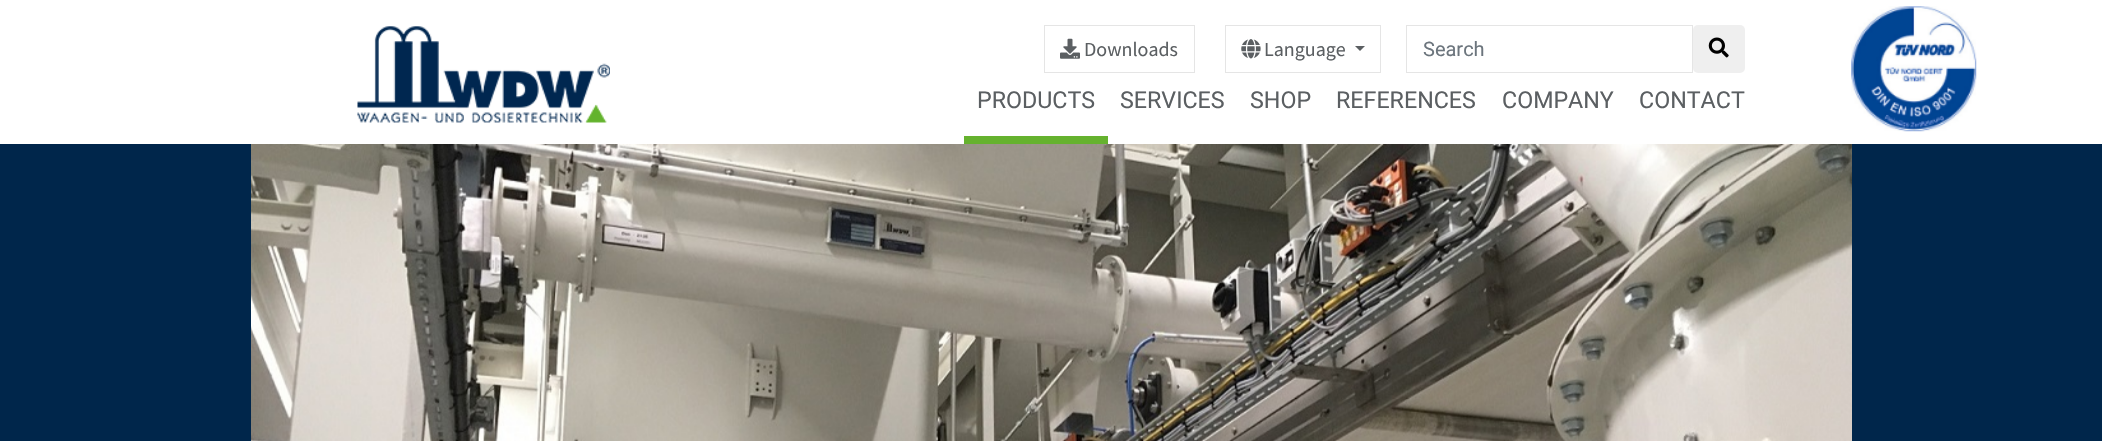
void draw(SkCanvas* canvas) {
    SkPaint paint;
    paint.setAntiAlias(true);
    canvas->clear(0xFFFFFFFF);
    canvas->drawImageRect(SkImages::DeferredFromEncodedData(SkData::MakeFromFileName("img1.png")), SkRect::MakeXYWH(357, 26, 253, 97), SkSamplingOptions());
    paint.setStyle(SkPaint::kStroke_Style);
    paint.setStrokeWidth(1);
    paint.setColor(0xFFE5E5E5);
    canvas->drawRect(SkRect::MakeXYWH(1044.5f, 25.5f, 150, 47), paint);
    canvas->drawImageRect(SkImages::DeferredFromEncodedData(SkData::MakeFromFileName("img2.png")), SkRect::MakeXYWH(1060, 38, 20, 21), SkSamplingOptions());
    SkFont font1(fontMgr->matchFamilyStyle("Source Sans Pro", SkFontStyle::Normal()), 20);
    font1.setSubpixel(true);
    paint.setStyle(SkPaint::kFill_Style);
    paint.setColor(0xFF5B5F62);
    canvas->drawString("Downloads", 1084, 56, font1, paint);
    paint.setStyle(SkPaint::kStroke_Style);
    paint.setColor(0xFFE5E5E5);
    canvas->drawRect(SkRect::MakeXYWH(1225.5f, 25.5f, 155, 47), paint);
    canvas->drawImageRect(SkImages::DeferredFromEncodedData(SkData::MakeFromFileName("img3.png")), SkRect::MakeXYWH(1241, 39, 20, 20), SkSamplingOptions());
    paint.setStyle(SkPaint::kFill_Style);
    paint.setColor(0xFF5B5F62);
    canvas->drawString("Language", 1264, 56, font1, paint);
    canvas->drawPath(SkPathBuilder().moveTo(1355, 46).lineTo(1365, 46).lineTo(1360, 51).close().detach(), paint);
    paint.setStyle(SkPaint::kStroke_Style);
    paint.setColor(0xFFE5E5E5);
    canvas->drawRect(SkRect::MakeXYWH(1406.5f, 25.5f, 286, 47), paint);
    SkFont font2(fontMgr->matchFamilyStyle("Roboto", SkFontStyle::Normal()), 20);
    font2.setSubpixel(true);
    paint.setStyle(SkPaint::kFill_Style);
    paint.setColor(0xFF6C757D);
    canvas->drawString("Search", 1423, 56, font2, paint);
    paint.setColor(0xFFEFEFEF);
    canvas->drawRoundRect(SkRect::MakeXYWH(1693, 25, 52, 48), 5, 5, paint);
    canvas->drawImageRect(SkImages::DeferredFromEncodedData(SkData::MakeFromFileName("img4.png")), SkRect::MakeXYWH(1708, 37, 21, 21), SkSamplingOptions());
    paint.setColor(0xFF65B22E);
    canvas->drawRect(SkRect::MakeXYWH(964, 136, 144, 8), paint);
    SkFont font3(fontMgr->matchFamilyStyle("Roboto", SkFontStyle::Normal()), 23.25f);
    font3.setSubpixel(true);
    paint.setColor(0xFF5B5F62);
    canvas->drawString("PRODUCTS", 977, 108, font3, paint);
    canvas->drawString("SERVICES", 1120, 108, font3, paint);
    canvas->drawString("SHOP", 1250, 108, font3, paint);
    canvas->drawString("REFERENCES", 1336, 108, font3, paint);
    canvas->drawString("COMPANY", 1502, 108, font3, paint);
    canvas->drawString("CONTACT", 1639, 108, font3, paint);
    canvas->drawImageRect(SkImages::DeferredFromEncodedData(SkData::MakeFromFileName("img5.png")), SkRect::MakeXYWH(1851, 6, 126, 126), SkSamplingOptions());
    paint.setColor(0xFF00264B);
    canvas->drawRect(SkRect::MakeXYWH(0, 144, 2102, 297), paint);
    canvas->drawImageRect(SkImages::DeferredFromEncodedData(SkData::MakeFromFileName("img6.png")), SkRect::MakeXYWH(251, 144, 1601, 297), SkSamplingOptions());
}
